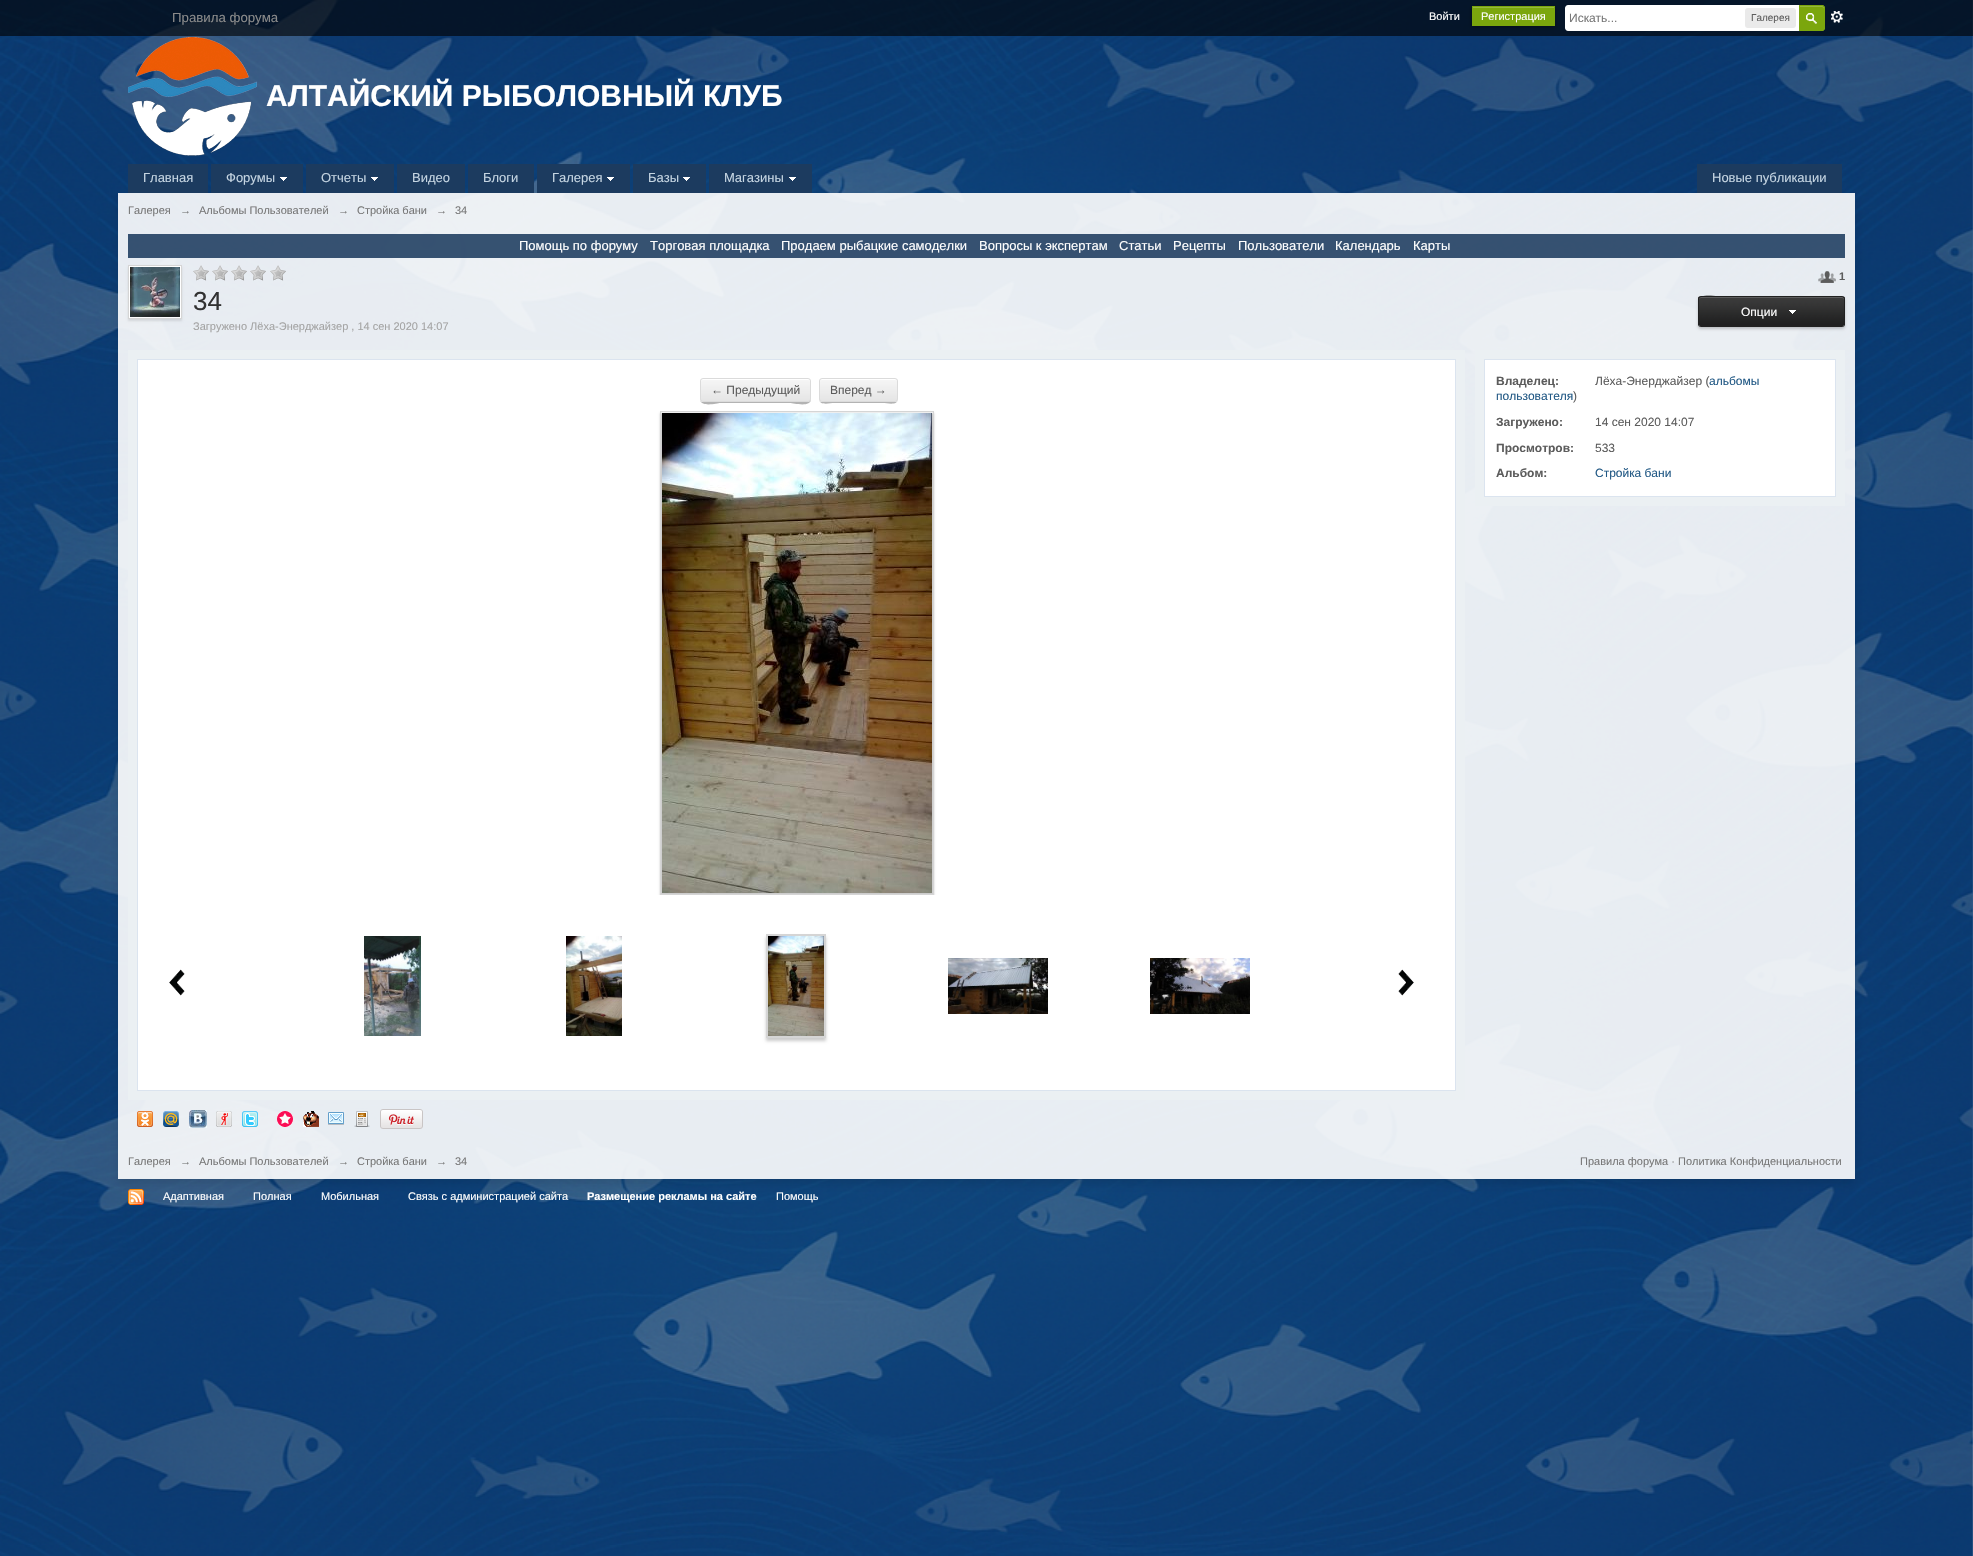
void draw(SkCanvas* canvas) {
    SkPaint paint;
    paint.setAntiAlias(true);
    canvas->clear(0xFFFFFFFF);
    canvas->drawImageRect(SkImages::DeferredFromEncodedData(SkData::MakeFromFileName("img1.png")), SkRect::MakeXYWH(1972, 1215, 1, 341), SkSamplingOptions());
    paint.setColor(0xFF386493);
    canvas->drawRect(SkRect::MakeXYWH(1972, 0, 1, 1215), paint);
    canvas->drawImageRect(SkImages::DeferredFromEncodedData(SkData::MakeFromFileName("img2.png")), SkRect::MakeXYWH(0, 0, 1973, 1556), SkSamplingOptions());
    paint.setColor(0xA1000000);
    canvas->drawRect(SkRect::MakeXYWH(0, 0, 1973, 36), paint);
    SkFont font1(fontMgr->matchFamilyStyle("Liberation Sans", SkFontStyle::Normal()), 13.25f);
    font1.setSubpixel(true);
    paint.setColor(0xFF8A8A8A);
    canvas->drawString("Правила форума", 172, 22, font1, paint);
    SkFont font2(fontMgr->matchFamilyStyle("Liberation Sans", SkFontStyle::Normal()), 11);
    font2.setSubpixel(true);
    paint.setColor(0xFFFFFFFF);
    canvas->drawString("Войти", 1429, 20, font2, paint);
    paint.setColor(0x66000000);
    paint.setMaskFilter(SkMaskFilter::MakeBlur(kNormal_SkBlurStyle, 2));
    canvas->drawRect(SkRect::MakeXYWH(1472, 7, 83, 20), paint);
    paint.setMaskFilter(nullptr);
    paint.setColor(0xFF7BA60D);
    canvas->drawRect(SkRect::MakeXYWH(1472, 6, 83, 20), paint);
    paint.setColor(0xFF95B83D);
    canvas->drawRect(SkRect::MakeXYWH(1473, 7, 81, 1), paint);
    paint.setColor(0xFFFFFFFF);
    canvas->drawString("Регистрация", 1481, 20, font2, paint);
    canvas->drawPath(SkPathBuilder().moveTo(1568, 5).lineTo(1821, 5).cubicTo(1823, 5, 1825, 7, 1825, 9).lineTo(1825, 27).cubicTo(1825, 29, 1823, 31, 1821, 31).lineTo(1568, 31).cubicTo(1566.5f, 31, 1565, 29.5f, 1565, 28).lineTo(1565, 8).cubicTo(1565, 6.5f, 1566.5f, 5, 1568, 5).close().detach(), paint);
    SkFont font3(fontMgr->matchFamilyStyle("Liberation Sans", SkFontStyle::Normal()), 12);
    font3.setSubpixel(true);
    paint.setColor(0xFF777777);
    canvas->drawString("Искать...", 1569, 22, font3, paint);
    paint.setColor(0xFFEAEAEA);
    canvas->drawRoundRect(SkRect::MakeXYWH(1745, 8, 51, 20), 3, 3, paint);
    SkFont font4(fontMgr->matchFamilyStyle("Liberation Sans", SkFontStyle::Normal()), 10);
    font4.setSubpixel(true);
    paint.setColor(0xFF5C5C5C);
    canvas->drawString("Галерея", 1751, 21, font4, paint);
    paint.setColor(0xFF7BA60D);
    canvas->drawPath(SkPathBuilder().moveTo(1799, 5).lineTo(1822, 5).cubicTo(1823.5f, 5, 1825, 6.5f, 1825, 8).lineTo(1825, 28).cubicTo(1825, 29.5f, 1823.5f, 31, 1822, 31).lineTo(1799, 31).close().detach(), paint);
    canvas->drawImageRect(SkImages::DeferredFromEncodedData(SkData::MakeFromFileName("img3.png")), SkRect::MakeXYWH(1806, 13, 11, 11), SkSamplingOptions());
    paint.setColor(0xFF95B83D);
    canvas->drawPath(SkPathBuilder().moveTo(1800, 7).lineTo(1822, 7).cubicTo(1823, 7, 1824, 8, 1824, 9).lineTo(1824, 8).cubicTo(1824, 7, 1823, 6, 1822, 6).lineTo(1800, 6).close().detach(), paint);
    paint.setStyle(SkPaint::kStroke_Style);
    paint.setStrokeWidth(1);
    paint.setColor(0xFF7BA60D);
    canvas->drawPath(SkPathBuilder().moveTo(1799.5f, 5.5f).lineTo(1822, 5.5f).cubicTo(1823.5f, 5.5f, 1824.5f, 6.5f, 1824.5f, 8).lineTo(1824.5f, 28).cubicTo(1824.5f, 29.5f, 1823.5f, 30.5f, 1822, 30.5f).lineTo(1799.5f, 30.5f).close().detach(), paint);
    canvas->drawImageRect(SkImages::DeferredFromEncodedData(SkData::MakeFromFileName("img4.png")), SkRect::MakeXYWH(1831, 11, 12, 12), SkSamplingOptions());
    canvas->drawImageRect(SkImages::DeferredFromEncodedData(SkData::MakeFromFileName("img5.png")), SkRect::MakeXYWH(128, 36, 129, 120), SkSamplingOptions());
    SkFont font5(fontMgr->matchFamilyStyle("Liberation Sans", SkFontStyle::Bold()), 30);
    font5.setSubpixel(true);
    paint.setStyle(SkPaint::kFill_Style);
    paint.setColor(0xFFFFFFFF);
    canvas->drawString("АЛТАЙСКИЙ РЫБОЛОВНЫЙ КЛУБ", 266, 106, font5, paint);
    canvas->save();
    canvas->clipPath(SkPathBuilder(SkPathFillType::kEvenOdd).moveTo(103, 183).lineTo(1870, 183).lineTo(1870, 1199).lineTo(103, 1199).close().moveTo(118, 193).lineTo(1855, 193).lineTo(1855, 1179).lineTo(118, 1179).close().detach(), true);
    paint.setColor(0x1A000000);
    paint.setMaskFilter(SkMaskFilter::MakeBlur(kNormal_SkBlurStyle, 4.5f));
    canvas->drawRect(SkRect::MakeXYWH(118, 198, 1737, 986), paint);
    paint.setMaskFilter(nullptr);
    canvas->restore();
    paint.setColor(0xFF1C3B5F);
    canvas->drawRect(SkRect::MakeXYWH(128, 164, 80, 29), paint);
    SkFont font6(fontMgr->matchFamilyStyle("Liberation Sans", SkFontStyle::Normal()), 13);
    font6.setSubpixel(true);
    paint.setColor(0xFFC5D5E2);
    canvas->drawString("Главная", 143, 182, font6, paint);
    paint.setColor(0xFF1C3B5F);
    canvas->drawRect(SkRect::MakeXYWH(211, 164, 92, 29), paint);
    paint.setColor(0xFFC5D5E2);
    canvas->drawString("Форумы", 226, 182, font6, paint);
    canvas->drawImageRect(SkImages::DeferredFromEncodedData(SkData::MakeFromFileName("img6.png")), SkRect::MakeXYWH(280, 177, 7, 4), SkSamplingOptions());
    paint.setColor(0xFF1C3B5F);
    canvas->drawRect(SkRect::MakeXYWH(306, 164, 88, 29), paint);
    paint.setColor(0xFFC5D5E2);
    canvas->drawString("Отчеты", 321, 182, font6, paint);
    canvas->drawImageRect(SkImages::DeferredFromEncodedData(SkData::MakeFromFileName("img6.png")), SkRect::MakeXYWH(371, 177, 7, 4), SkSamplingOptions());
    paint.setColor(0xFF1C3B5F);
    canvas->drawRect(SkRect::MakeXYWH(397, 164, 68, 29), paint);
    paint.setColor(0xFFC5D5E2);
    canvas->drawString("Видео", 412, 182, font6, paint);
    paint.setColor(0xFF1C3B5F);
    canvas->drawRect(SkRect::MakeXYWH(468, 164, 66, 29), paint);
    paint.setColor(0xFFC5D5E2);
    canvas->drawString("Блоги", 483, 182, font6, paint);
    paint.setColor(0xFF1C3B5F);
    canvas->drawRect(SkRect::MakeXYWH(537, 164, 93, 29), paint);
    paint.setColor(0xFFC5D5E2);
    canvas->drawString("Галерея", 552, 182, font6, paint);
    canvas->drawImageRect(SkImages::DeferredFromEncodedData(SkData::MakeFromFileName("img6.png")), SkRect::MakeXYWH(607, 177, 7, 4), SkSamplingOptions());
    paint.setColor(0xFF1C3B5F);
    canvas->drawRect(SkRect::MakeXYWH(633, 164, 73, 29), paint);
    paint.setColor(0xFFC5D5E2);
    canvas->drawString("Базы", 648, 182, font6, paint);
    canvas->drawImageRect(SkImages::DeferredFromEncodedData(SkData::MakeFromFileName("img6.png")), SkRect::MakeXYWH(683, 177, 7, 4), SkSamplingOptions());
    paint.setColor(0xFF1C3B5F);
    canvas->drawRect(SkRect::MakeXYWH(709, 164, 103, 29), paint);
    paint.setColor(0xFFC5D5E2);
    canvas->drawString("Магазины", 724, 182, font6, paint);
    canvas->drawImageRect(SkImages::DeferredFromEncodedData(SkData::MakeFromFileName("img6.png")), SkRect::MakeXYWH(789, 177, 7, 4), SkSamplingOptions());
    paint.setColor(0xFF1C3B5F);
    canvas->drawRect(SkRect::MakeXYWH(1697, 164, 145, 29), paint);
    paint.setColor(0xFFC5D5E2);
    canvas->drawString("Новые публикации", 1712, 182, font6, paint);
    paint.setColor(0xE6FFFFFF);
    canvas->drawRect(SkRect::MakeXYWH(118, 193, 1737, 986), paint);
    paint.setColor(0xFF777777);
    canvas->drawString("Галерея", 128, 214, font2, paint);
    canvas->drawString("→", 180, 214, font2, paint);
    canvas->drawString("Альбомы Пользователей", 199, 214, font2, paint);
    canvas->drawString("→", 338, 214, font2, paint);
    canvas->drawString("Стройка бани", 357, 214, font2, paint);
    canvas->drawString("→", 436, 214, font2, paint);
    canvas->drawString("34", 455, 214, font2, paint);
    paint.setColor(0xE01C3B5F);
    canvas->drawRect(SkRect::MakeXYWH(128, 234, 1717, 24), paint);
    paint.setColor(0xFFFFFFFF);
    canvas->drawString("Помощь по форуму", 519, 250, font6, paint);
    canvas->drawString("Торговая площадка", 650, 250, font6, paint);
    canvas->drawString("Продаем рыбацкие самоделки", 781, 250, font6, paint);
    canvas->drawString("Вопросы к экспертам", 979, 250, font6, paint);
    canvas->drawString("Статьи", 1119, 250, font6, paint);
    canvas->drawString("Рецепты", 1173, 250, font6, paint);
    canvas->drawString("Пользователи", 1238, 250, font6, paint);
    canvas->drawString("Календарь", 1335, 250, font6, paint);
    canvas->drawString("Карты", 1413, 250, font6, paint);
    paint.setColor(0x1A000000);
    paint.setMaskFilter(SkMaskFilter::MakeBlur(kNormal_SkBlurStyle, 1));
    canvas->drawRect(SkRect::MakeXYWH(128, 267, 54, 54), paint);
    paint.setMaskFilter(nullptr);
    paint.setColor(0xFFFFFFFF);
    canvas->drawRect(SkRect::MakeXYWH(128.5f, 265.5f, 53, 53), paint);
    paint.setStyle(SkPaint::kStroke_Style);
    paint.setColor(0xFFD5D5D5);
    canvas->drawRect(SkRect::MakeXYWH(128.5f, 265.5f, 53, 53), paint);
    canvas->drawImageRect(SkImages::DeferredFromEncodedData(SkData::MakeFromFileName("img7.png")), SkRect::MakeXYWH(130, 267, 50, 50), SkSamplingOptions());
    canvas->drawImageRect(SkImages::DeferredFromEncodedData(SkData::MakeFromFileName("img8.png")), SkRect::MakeXYWH(193, 265, 16, 16), SkSamplingOptions());
    canvas->drawImageRect(SkImages::DeferredFromEncodedData(SkData::MakeFromFileName("img9.png")), SkRect::MakeXYWH(212, 265, 16, 16), SkSamplingOptions());
    canvas->drawImageRect(SkImages::DeferredFromEncodedData(SkData::MakeFromFileName("img10.png")), SkRect::MakeXYWH(231, 265, 16, 16), SkSamplingOptions());
    canvas->drawImageRect(SkImages::DeferredFromEncodedData(SkData::MakeFromFileName("img11.png")), SkRect::MakeXYWH(250, 265, 16, 16), SkSamplingOptions());
    canvas->drawImageRect(SkImages::DeferredFromEncodedData(SkData::MakeFromFileName("img12.png")), SkRect::MakeXYWH(270, 265, 16, 16), SkSamplingOptions());
    SkFont font7(fontMgr->matchFamilyStyle("Liberation Sans", SkFontStyle::Normal()), 26);
    font7.setSubpixel(true);
    paint.setStyle(SkPaint::kFill_Style);
    paint.setColor(0xFF323232);
    canvas->drawString("34", 193, 310, font7, paint);
    paint.setColor(0xFFA4A4A4);
    canvas->drawString("Загружено Лёха-Энерджайзер , 14 сен 2020 14:07", 193, 330, font2, paint);
    canvas->drawImageRect(SkImages::DeferredFromEncodedData(SkData::MakeFromFileName("img13.png")), SkRect::MakeXYWH(1818, 271, 18, 12), SkSamplingOptions());
    SkFont font8(fontMgr->matchFamilyStyle("Liberation Sans", SkFontStyle::Bold()), 11);
    font8.setSubpixel(true);
    paint.setColor(0xFF5C5C5C);
    canvas->drawString("1", 1839, 280, font8, paint);
    paint.setColor(0x33000000);
    paint.setMaskFilter(SkMaskFilter::MakeBlur(kNormal_SkBlurStyle, 1.5f));
    canvas->drawRoundRect(SkRect::MakeXYWH(1698, 298, 147, 31), 3, 3, paint);
    paint.setMaskFilter(nullptr);
    paint.setColor(0xFF212121);
    canvas->drawPath(SkPathBuilder().moveTo(1701, 297).lineTo(1842, 297).cubicTo(1843, 297, 1844, 298, 1844, 299).lineTo(1844, 324).cubicTo(1844, 326, 1843, 327, 1842, 327).lineTo(1701, 327).cubicTo(1700, 327, 1699, 326, 1699, 324).lineTo(1699, 299).cubicTo(1699, 298, 1700, 297, 1701, 297).close().detach(), paint);
    canvas->drawImageRect(SkImages::DeferredFromEncodedData(SkData::MakeFromFileName("img14.png")), SkRect::MakeXYWH(1698, 297, 147, 28), SkSamplingOptions());
    paint.setColor(0xFF5C5C5C);
    canvas->drawPath(SkPathBuilder().moveTo(1701, 298).lineTo(1842, 298).cubicTo(1843, 298, 1844, 299, 1844, 300).cubicTo(1844, 299, 1844, 298, 1843, 297).lineTo(1724, 297).cubicTo(1721, 297, 1699, 292, 1699, 300).cubicTo(1699, 299, 1700, 298, 1701, 298).close().detach(), paint);
    paint.setColor(0xFF212121);
    canvas->drawPath(SkPathBuilder(SkPathFillType::kEvenOdd).moveTo(1701, 296).lineTo(1842, 296).cubicTo(1844, 296, 1845, 297, 1845, 299).lineTo(1845, 324).cubicTo(1845, 326, 1844, 327, 1842, 327).lineTo(1701, 327).cubicTo(1699, 327, 1698, 326, 1698, 324).lineTo(1698, 299).cubicTo(1698, 297, 1699, 296, 1701, 296).close().moveTo(1701, 297).lineTo(1842, 297).cubicTo(1843, 297, 1844, 298, 1844, 299).lineTo(1844, 324).cubicTo(1844, 326, 1843, 327, 1842, 327).lineTo(1701, 327).cubicTo(1700, 327, 1699, 326, 1699, 324).lineTo(1699, 299).cubicTo(1699, 298, 1700, 297, 1701, 297).close().detach(), paint);
    paint.setColor(0xFFFFFFFF);
    canvas->drawString("Опции", 1741, 316, font3, paint);
    canvas->drawImageRect(SkImages::DeferredFromEncodedData(SkData::MakeFromFileName("img15.png")), SkRect::MakeXYWH(1789, 310, 7, 4), SkSamplingOptions());
    paint.setColor(0xFFEBF0F3);
    canvas->drawRect(SkRect::MakeXYWH(128, 350, 1337, 750), paint);
    paint.setColor(0xFFFFFFFF);
    canvas->drawRect(SkRect::MakeXYWH(137.5f, 359.5f, 1318, 731), paint);
    paint.setStyle(SkPaint::kStroke_Style);
    paint.setColor(0xFFDBE4EF);
    canvas->drawRect(SkRect::MakeXYWH(137.5f, 359.5f, 1318, 731), paint);
    paint.setStyle(SkPaint::kFill_Style);
    paint.setColor(0xFFB3B3B3);
    canvas->drawPath(SkPathBuilder().moveTo(700, 399).cubicTo(700, 408, 718, 403, 720, 403).lineTo(790, 403).cubicTo(793, 403, 811, 408, 811, 399).lineTo(810, 401).lineTo(808, 402).lineTo(703, 402).cubicTo(701, 402, 700, 401, 700, 399).close().detach(), paint);
    canvas->save();
    canvas->clipPath(SkPathBuilder().moveTo(703, 378).lineTo(808, 378).cubicTo(809.5f, 378, 811, 379.5f, 811, 381).lineTo(811, 399).cubicTo(811, 400.5f, 809.5f, 402, 808, 402).lineTo(703, 402).cubicTo(701.5f, 402, 700, 400.5f, 700, 399).lineTo(700, 381).cubicTo(700, 379.5f, 701.5f, 378, 703, 378).close().detach(), true);
    {
        const SkColor colors[] = {0xFFF6F6F6, 0xFFE5E5E5};
        const float stops[] = {0, 1};
        const SkPoint ends[] = {{701, 379}, {701, 401}};
        paint.setShader(SkGradientShader::MakeLinear(ends, colors, stops, 2, SkTileMode::kClamp));
        paint.setAlpha(255);
    }
    canvas->drawRect(SkRect::MakeXYWH(700, 379, 111, 22), paint);
    canvas->restore();
    paint.setShader(nullptr);
    paint.setColor(0xFFFFFFFF);
    canvas->drawPath(SkPathBuilder().moveTo(703, 380).lineTo(808, 380).cubicTo(809, 380, 810, 381, 810, 382).cubicTo(810, 381, 810, 379, 808, 379).lineTo(703, 379).cubicTo(701, 379, 701, 381, 701, 382).cubicTo(701, 381, 702, 380, 703, 380).close().detach(), paint);
    paint.setStyle(SkPaint::kStroke_Style);
    paint.setColor(0xFFDBDBDB);
    canvas->drawRoundRect(SkRect::MakeXYWH(700.5f, 378.5f, 110, 23), 2.5f, 2.5f, paint);
    paint.setStyle(SkPaint::kFill_Style);
    paint.setColor(0xFF5C5C5C);
    canvas->drawString("← Предыдущий", 711, 394, font3, paint);
    paint.setColor(0xFFB3B3B3);
    canvas->drawPath(SkPathBuilder().moveTo(819, 399).cubicTo(819, 406, 830, 403, 834, 403).lineTo(883, 403).cubicTo(887, 403, 898, 406, 898, 399).cubicTo(898, 401, 897, 402, 895, 402).lineTo(822, 402).cubicTo(820, 402, 819, 401, 819, 399).close().detach(), paint);
    canvas->save();
    canvas->clipPath(SkPathBuilder().moveTo(822, 378).lineTo(895, 378).cubicTo(896.5f, 378, 898, 379.5f, 898, 381).lineTo(898, 399).cubicTo(898, 400.5f, 896.5f, 402, 895, 402).lineTo(822, 402).cubicTo(820.5f, 402, 819, 400.5f, 819, 399).lineTo(819, 381).cubicTo(819, 379.5f, 820.5f, 378, 822, 378).close().detach(), true);
    {
        const SkColor colors[] = {0xFFF6F6F6, 0xFFE5E5E5};
        const float stops[] = {0, 1};
        const SkPoint ends[] = {{820, 379}, {820, 401}};
        paint.setShader(SkGradientShader::MakeLinear(ends, colors, stops, 2, SkTileMode::kClamp));
        paint.setAlpha(255);
    }
    canvas->drawRect(SkRect::MakeXYWH(819, 379, 79, 22), paint);
    canvas->restore();
    paint.setShader(nullptr);
    paint.setColor(0xFFFFFFFF);
    canvas->drawPath(SkPathBuilder().moveTo(822, 380).lineTo(895, 380).cubicTo(896, 380, 897, 381, 897, 382).cubicTo(897, 376, 886, 379, 883, 379).lineTo(834, 379).cubicTo(831, 379, 820, 376, 820, 382).cubicTo(820, 381, 821, 380, 822, 380).close().detach(), paint);
    paint.setStyle(SkPaint::kStroke_Style);
    paint.setColor(0xFFDBDBDB);
    canvas->drawRoundRect(SkRect::MakeXYWH(819.5f, 378.5f, 78, 23), 2.5f, 2.5f, paint);
    paint.setStyle(SkPaint::kFill_Style);
    paint.setColor(0xFF5C5C5C);
    canvas->drawString("Вперед →", 830, 394, font3, paint);
    canvas->save();
    canvas->clipRect(SkRect::MakeXYWH(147, 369, 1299, 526));
    paint.setColor(0x33000000);
    paint.setMaskFilter(SkMaskFilter::MakeBlur(kNormal_SkBlurStyle, 1));
    canvas->drawRect(SkRect::MakeXYWH(660, 413, 274, 484), paint);
    paint.setMaskFilter(nullptr);
    canvas->restore();
    paint.setStyle(SkPaint::kStroke_Style);
    paint.setColor(0xFFD5D5D5);
    canvas->drawRect(SkRect::MakeXYWH(660.5f, 411.5f, 273, 483), paint);
    canvas->drawImageRect(SkImages::DeferredFromEncodedData(SkData::MakeFromFileName("img16.png")), SkRect::MakeXYWH(662, 413, 270, 480), SkSamplingOptions());
    canvas->drawImageRect(SkImages::DeferredFromEncodedData(SkData::MakeFromFileName("img17.png")), SkRect::MakeXYWH(169, 969, 16, 27), SkSamplingOptions());
    canvas->drawImageRect(SkImages::DeferredFromEncodedData(SkData::MakeFromFileName("img18.png")), SkRect::MakeXYWH(364, 936, 57, 100), SkSamplingOptions());
    canvas->drawImageRect(SkImages::DeferredFromEncodedData(SkData::MakeFromFileName("img19.png")), SkRect::MakeXYWH(566, 936, 56, 100), SkSamplingOptions());
    paint.setStyle(SkPaint::kFill_Style);
    paint.setColor(0x33000000);
    paint.setMaskFilter(SkMaskFilter::MakeBlur(kNormal_SkBlurStyle, 1.5f));
    canvas->drawRect(SkRect::MakeXYWH(766, 937, 60, 104), paint);
    paint.setMaskFilter(nullptr);
    paint.setStyle(SkPaint::kStroke_Style);
    paint.setStrokeWidth(2);
    paint.setColor(0xFFD5D5D5);
    canvas->drawRect(SkRect::MakeXYWH(767, 935, 58, 102), paint);
    canvas->drawImageRect(SkImages::DeferredFromEncodedData(SkData::MakeFromFileName("img20.png")), SkRect::MakeXYWH(768, 936, 56, 100), SkSamplingOptions());
    canvas->drawImageRect(SkImages::DeferredFromEncodedData(SkData::MakeFromFileName("img21.png")), SkRect::MakeXYWH(948, 958, 100, 56), SkSamplingOptions());
    canvas->drawImageRect(SkImages::DeferredFromEncodedData(SkData::MakeFromFileName("img22.png")), SkRect::MakeXYWH(1150, 958, 100, 56), SkSamplingOptions());
    canvas->drawImageRect(SkImages::DeferredFromEncodedData(SkData::MakeFromFileName("img23.png")), SkRect::MakeXYWH(1398, 969, 16, 27), SkSamplingOptions());
    canvas->drawImageRect(SkImages::DeferredFromEncodedData(SkData::MakeFromFileName("img24.png")), SkRect::MakeXYWH(137, 1111, 16, 16), SkSamplingOptions());
    canvas->drawImageRect(SkImages::DeferredFromEncodedData(SkData::MakeFromFileName("img25.png")), SkRect::MakeXYWH(163, 1111, 16, 16), SkSamplingOptions());
    canvas->drawImageRect(SkImages::DeferredFromEncodedData(SkData::MakeFromFileName("img26.png")), SkRect::MakeXYWH(189, 1110, 18, 18), SkSamplingOptions());
    canvas->drawImageRect(SkImages::DeferredFromEncodedData(SkData::MakeFromFileName("img27.png")), SkRect::MakeXYWH(216, 1111, 16, 16), SkSamplingOptions());
    canvas->drawImageRect(SkImages::DeferredFromEncodedData(SkData::MakeFromFileName("img28.png")), SkRect::MakeXYWH(242, 1111, 16, 16), SkSamplingOptions());
    canvas->drawImageRect(SkImages::DeferredFromEncodedData(SkData::MakeFromFileName("img29.png")), SkRect::MakeXYWH(277, 1111, 16, 16), SkSamplingOptions());
    canvas->drawImageRect(SkImages::DeferredFromEncodedData(SkData::MakeFromFileName("img30.png")), SkRect::MakeXYWH(303, 1111, 16, 16), SkSamplingOptions());
    canvas->drawImageRect(SkImages::DeferredFromEncodedData(SkData::MakeFromFileName("img31.png")), SkRect::MakeXYWH(328, 1112, 16, 13), SkSamplingOptions());
    canvas->drawImageRect(SkImages::DeferredFromEncodedData(SkData::MakeFromFileName("img32.png")), SkRect::MakeXYWH(354, 1111, 16, 16), SkSamplingOptions());
    canvas->drawImageRect(SkImages::DeferredFromEncodedData(SkData::MakeFromFileName("img33.png")), SkRect::MakeXYWH(380, 1109, 43, 20), SkSamplingOptions());
    paint.setStyle(SkPaint::kFill_Style);
    paint.setColor(0xFFEBF0F3);
    canvas->drawRect(SkRect::MakeXYWH(1475, 350, 370, 156), paint);
    paint.setColor(0xFFFFFFFF);
    canvas->drawRect(SkRect::MakeXYWH(1484.5f, 359.5f, 351, 137), paint);
    paint.setStyle(SkPaint::kStroke_Style);
    paint.setStrokeWidth(1);
    paint.setColor(0xFFDBE4EF);
    canvas->drawRect(SkRect::MakeXYWH(1484.5f, 359.5f, 351, 137), paint);
    SkFont font9(fontMgr->matchFamilyStyle("Liberation Sans", SkFontStyle::Bold()), 12);
    font9.setSubpixel(true);
    paint.setStyle(SkPaint::kFill_Style);
    paint.setColor(0xFF5C5C5C);
    canvas->drawString("Владелец:", 1496, 385, font9, paint);
    canvas->drawString("Лёха-Энерджайзер (", 1595, 385, font3, paint);
    paint.setColor(0xFF225985);
    canvas->drawString("альбомы", 1709, 385, font3, paint);
    canvas->drawString("пользователя", 1496, 400, font3, paint);
    paint.setColor(0xFF5C5C5C);
    canvas->drawString(")", 1573, 400, font3, paint);
    canvas->drawString("Загружено:", 1496, 426, font9, paint);
    canvas->drawString("14 сен 2020 14:07", 1595, 426, font3, paint);
    canvas->drawString("Просмотров:", 1496, 452, font9, paint);
    canvas->drawString("533", 1595, 452, font3, paint);
    canvas->drawString("Альбом:", 1496, 477, font9, paint);
    paint.setColor(0xFF225985);
    canvas->drawString("Стройка бани", 1595, 477, font3, paint);
    paint.setColor(0xFF777777);
    canvas->drawString("Галерея", 128, 1165, font2, paint);
    canvas->drawString("→", 180, 1165, font2, paint);
    canvas->drawString("Альбомы Пользователей", 199, 1165, font2, paint);
    canvas->drawString("→", 338, 1165, font2, paint);
    canvas->drawString("Стройка бани", 357, 1165, font2, paint);
    canvas->drawString("→", 436, 1165, font2, paint);
    canvas->drawString("34", 455, 1165, font2, paint);
    canvas->drawString("Правила форума ·", 1580, 1165, font2, paint);
    canvas->drawString("Политика Конфиденциальности", 1678, 1165, font2, paint);
    canvas->drawImageRect(SkImages::DeferredFromEncodedData(SkData::MakeFromFileName("img34.png")), SkRect::MakeXYWH(128, 1189, 16, 16), SkSamplingOptions());
    paint.setColor(0xFFFFFFFF);
    canvas->drawString("Адаптивная", 163, 1200, font2, paint);
    canvas->drawString("Полная", 253, 1200, font2, paint);
    canvas->drawString("Мобильная", 321, 1200, font2, paint);
    canvas->drawString("Связь с администрацией сайта", 408, 1200, font2, paint);
    canvas->drawString("Размещение рекламы на сайте", 587, 1200, font8, paint);
    canvas->drawString("Помощь", 776, 1200, font2, paint);
}
